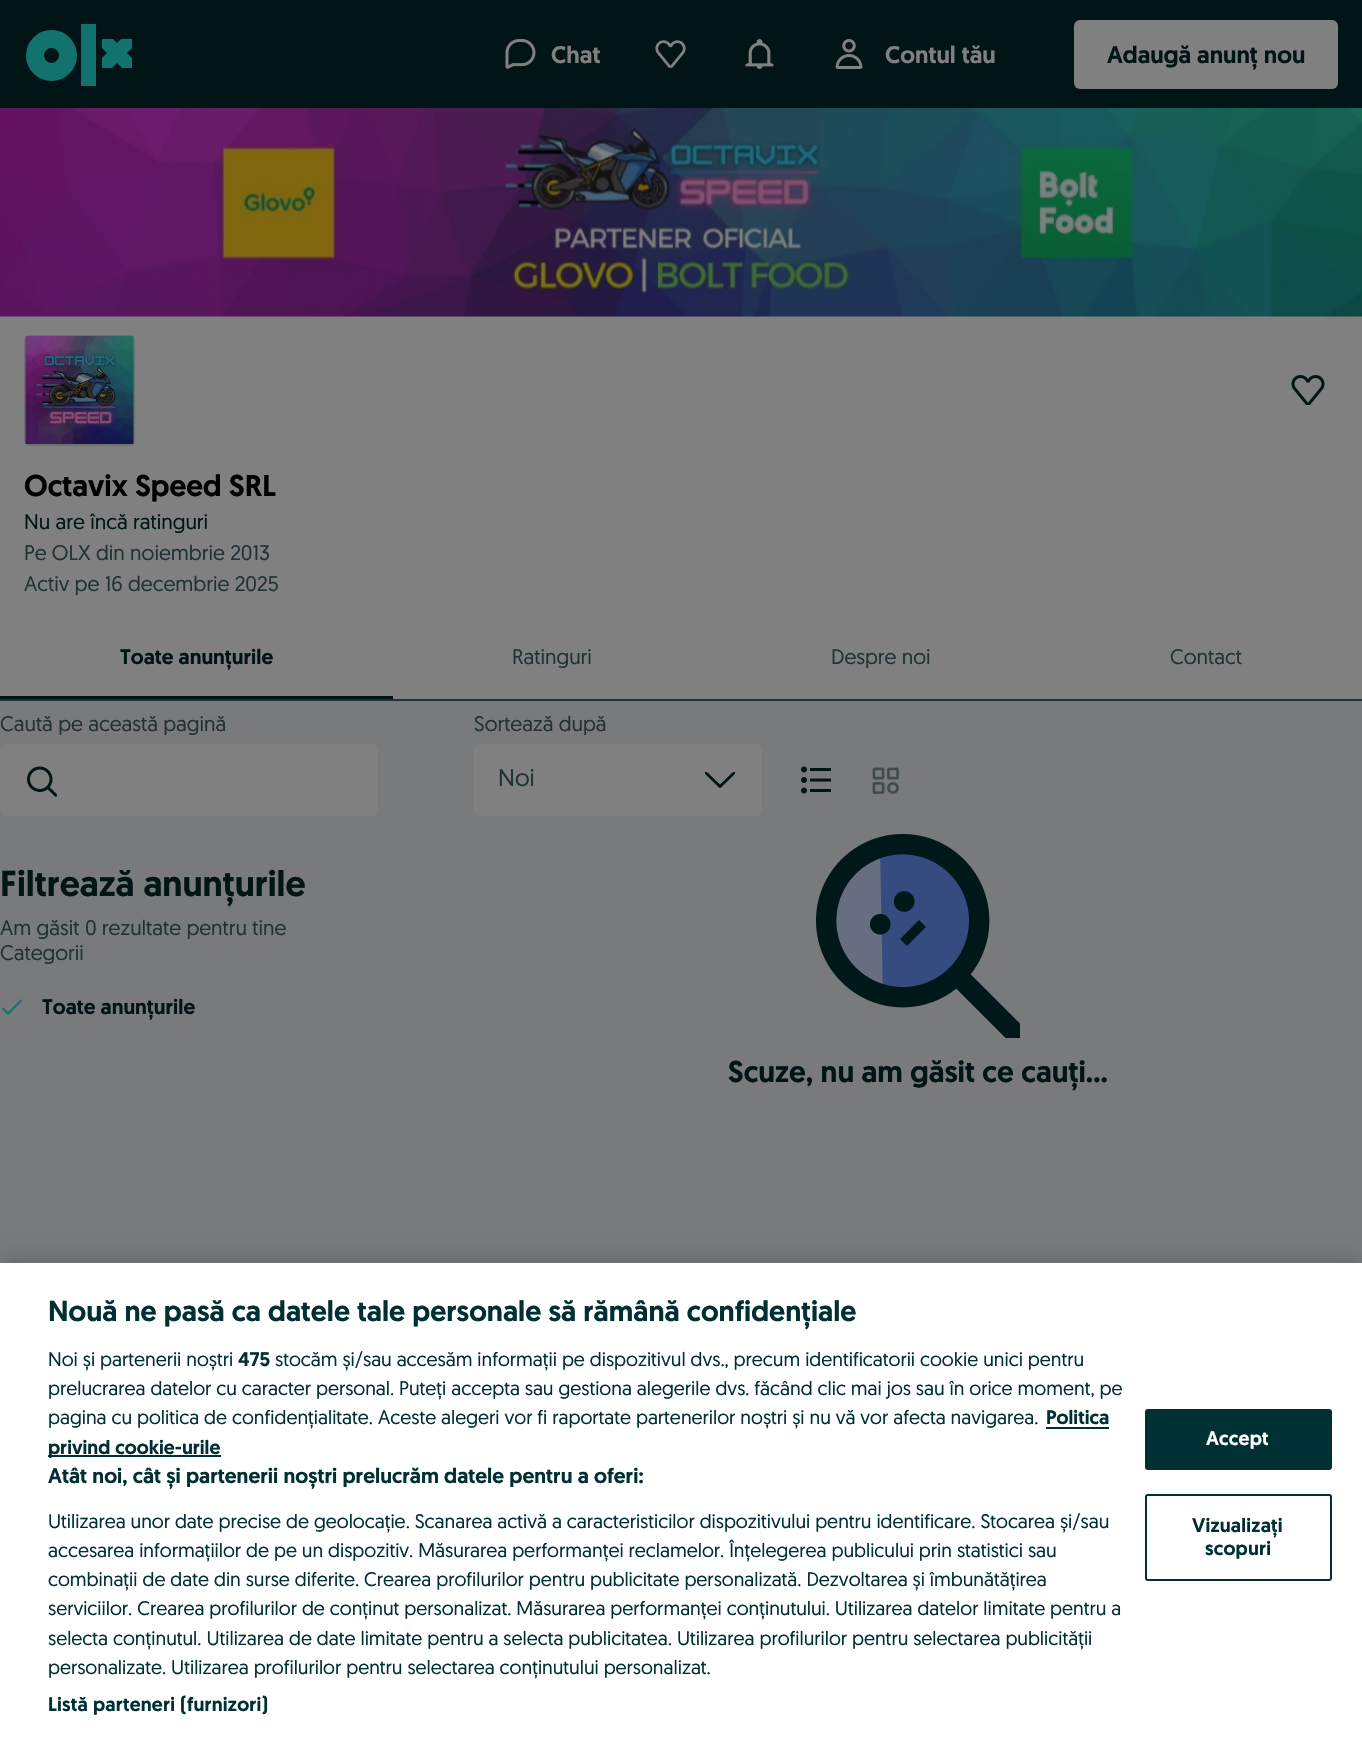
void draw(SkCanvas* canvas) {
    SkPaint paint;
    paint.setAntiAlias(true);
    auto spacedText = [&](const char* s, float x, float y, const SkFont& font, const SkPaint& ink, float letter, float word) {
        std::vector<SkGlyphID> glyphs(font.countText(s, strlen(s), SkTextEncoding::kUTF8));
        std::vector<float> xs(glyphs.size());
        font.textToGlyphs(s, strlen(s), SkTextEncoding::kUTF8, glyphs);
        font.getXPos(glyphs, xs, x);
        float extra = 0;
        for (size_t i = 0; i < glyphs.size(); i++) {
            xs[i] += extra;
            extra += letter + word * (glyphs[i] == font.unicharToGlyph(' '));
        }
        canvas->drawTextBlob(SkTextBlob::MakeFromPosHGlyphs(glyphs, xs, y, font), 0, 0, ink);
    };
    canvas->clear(0xFF797A7B);
    paint.setColor(0xFF011416);
    canvas->drawRect(SkRect::MakeXYWH(0, 0, 1362, 108), paint);
    paint.setStyle(SkPaint::kStroke_Style);
    paint.setStrokeWidth(18);
    paint.setColor(0xFF12736E);
    canvas->drawCircle(51.5f, 55.5f, 16.5f, paint);
    paint.setStyle(SkPaint::kFill_Style);
    canvas->drawRect(SkRect::MakeXYWH(81, 24, 15, 62), paint);
    canvas->save();
    canvas->clipRect(SkRect::MakeXYWH(102, 39, 30, 30));
    canvas->drawPath(SkPathBuilder().moveTo(92, 38).lineTo(112, 38).lineTo(142, 68).lineTo(122, 68).close().detach(), paint);
    canvas->drawPath(SkPathBuilder().moveTo(122, 38).lineTo(142, 38).lineTo(112, 68).lineTo(92, 68).close().detach(), paint);
    canvas->restore();
    canvas->drawImageRect(SkImages::DeferredFromEncodedData(SkData::MakeFromFileName("img1.png")), SkRect::MakeXYWH(505, 39, 31, 30), SkSamplingOptions());
    SkFont font1(fontMgr->matchFamilyStyle("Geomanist", SkFontStyle(500, SkFontStyle::kNormal_Width, SkFontStyle::kUpright_Slant)), 24);
    font1.setSubpixel(true);
    paint.setColor(0xFF808080);
    canvas->drawString("Chat", 551, 63, font1, paint);
    canvas->drawImageRect(SkImages::DeferredFromEncodedData(SkData::MakeFromFileName("img2.png")), SkRect::MakeXYWH(655, 40, 31, 28), SkSamplingOptions());
    canvas->drawImageRect(SkImages::DeferredFromEncodedData(SkData::MakeFromFileName("img3.png")), SkRect::MakeXYWH(745, 39, 29, 30), SkSamplingOptions());
    canvas->drawImageRect(SkImages::DeferredFromEncodedData(SkData::MakeFromFileName("img4.png")), SkRect::MakeXYWH(835, 39, 28, 30), SkSamplingOptions());
    canvas->drawString("Contul tău", 885, 63, font1, paint);
    canvas->drawRoundRect(SkRect::MakeXYWH(1074, 20, 264, 69), 6, 6, paint);
    paint.setColor(0xFF011416);
    canvas->drawString("Adaugă anunț nou", 1107, 63, font1, paint);
    paint.setColor(0xFF808080);
    canvas->drawRect(SkRect::MakeXYWH(0, 316, 1362, 383), paint);
    canvas->drawImageRect(SkImages::DeferredFromEncodedData(SkData::MakeFromFileName("img5.png")), SkRect::MakeXYWH(0, 108, 1362, 209), SkSamplingOptions());
    paint.setStyle(SkPaint::kStroke_Style);
    paint.setStrokeWidth(2);
    paint.setColor(0xFF6C7070);
    canvas->drawRoundRect(SkRect::MakeXYWH(25, 336, 109, 109), 5, 5, paint);
    canvas->drawImageRect(SkImages::DeferredFromEncodedData(SkData::MakeFromFileName("img6.png")), SkRect::MakeXYWH(25, 336, 109, 108), SkSamplingOptions());
    canvas->drawImageRect(SkImages::DeferredFromEncodedData(SkData::MakeFromFileName("img7.png")), SkRect::MakeXYWH(1291, 375, 34, 30), SkSamplingOptions());
    SkFont font2(fontMgr->matchFamilyStyle("Geomanist", SkFontStyle(500, SkFontStyle::kNormal_Width, SkFontStyle::kUpright_Slant)), 30);
    font2.setSubpixel(true);
    paint.setStyle(SkPaint::kFill_Style);
    paint.setColor(0xFF000000);
    canvas->drawString("Octavix Speed SRL", 24, 496, font2, paint);
    SkFont font3(fontMgr->matchFamilyStyle("Geomanist", SkFontStyle::Normal()), 21);
    font3.setSubpixel(true);
    paint.setColor(0xFF011416);
    canvas->drawString("Nu are încă ratinguri", 24, 529, font3, paint);
    paint.setColor(0xFF203234);
    canvas->drawString("Pe OLX din noiembrie 2013", 24, 560, font3, paint);
    canvas->drawString("Activ pe 16 decembrie 2025", 24, 591, font3, paint);
    canvas->drawRect(SkRect::MakeXYWH(0, 699, 1362, 2), paint);
    paint.setColor(0xFF011416);
    canvas->drawRect(SkRect::MakeXYWH(0, 696, 393, 3), paint);
    SkFont font4(fontMgr->matchFamilyStyle("Geomanist", SkFontStyle(500, SkFontStyle::kNormal_Width, SkFontStyle::kUpright_Slant)), 21);
    font4.setSubpixel(true);
    canvas->drawString("Toate anunțurile", 120, 664, font4, paint);
    paint.setColor(0xFF203234);
    canvas->drawString("Ratinguri", 512, 664, font3, paint);
    canvas->drawString("Despre noi", 831, 664, font3, paint);
    canvas->drawString("Contact", 1170, 664, font3, paint);
    canvas->drawString("Caută pe această pagină", 0, 731, font3, paint);
    paint.setColor(0xFF808080);
    canvas->drawRoundRect(SkRect::MakeXYWH(0, 744, 378, 72), 6, 6, paint);
    canvas->drawImageRect(SkImages::DeferredFromEncodedData(SkData::MakeFromFileName("img8.png")), SkRect::MakeXYWH(27, 766, 30, 31), SkSamplingOptions());
    SkFont font5(fontMgr->matchFamilyStyle("Geomanist", SkFontStyle(500, SkFontStyle::kNormal_Width, SkFontStyle::kUpright_Slant)), 36);
    font5.setSubpixel(true);
    paint.setColor(0xFF011416);
    canvas->drawString("Filtrează anunțurile", 0, 896, font5, paint);
    paint.setColor(0xFF203234);
    canvas->drawString("Am găsit 0 rezultate pentru tine", 0, 935, font3, paint);
    canvas->drawString("Categorii", 0, 960, font3, paint);
    canvas->drawImageRect(SkImages::DeferredFromEncodedData(SkData::MakeFromFileName("img9.png")), SkRect::MakeXYWH(2, 999, 20, 16), SkSamplingOptions());
    paint.setColor(0xFF011416);
    canvas->drawString("Toate anunțurile", 42, 1014, font4, paint);
    paint.setColor(0xFF203234);
    canvas->drawString("Sortează după", 474, 731, font3, paint);
    paint.setColor(0xFF808080);
    canvas->drawRoundRect(SkRect::MakeXYWH(474, 744, 288, 72), 6, 6, paint);
    SkFont font6(fontMgr->matchFamilyStyle("Geomanist", SkFontStyle::Normal()), 24);
    font6.setSubpixel(true);
    paint.setColor(0xFF203234);
    canvas->drawString("Noi", 498, 786, font6, paint);
    paint.setColor(0xFF011416);
    canvas->drawPath(SkPathBuilder(SkPathFillType::kEvenOdd).moveTo(705, 772).lineTo(707, 772).lineTo(720, 784.5f).lineTo(733, 772).lineTo(735, 772).lineTo(735, 774).lineTo(720.5f, 788).lineTo(719.5f, 788).lineTo(705, 774).close().detach(), paint);
    canvas->drawImageRect(SkImages::DeferredFromEncodedData(SkData::MakeFromFileName("img10.png")), SkRect::MakeXYWH(801, 766, 30, 28), SkSamplingOptions());
    canvas->drawImageRect(SkImages::DeferredFromEncodedData(SkData::MakeFromFileName("img11.png")), SkRect::MakeXYWH(872, 767, 27, 27), SkSamplingOptions());
    canvas->drawImageRect(SkImages::DeferredFromEncodedData(SkData::MakeFromFileName("img12.png")), SkRect::MakeXYWH(816, 834, 204, 204), SkSamplingOptions());
    canvas->drawString("Scuze, nu am găsit ce cauți...", 728, 1082, font2, paint);
    paint.setColor(0x33000000);
    paint.setMaskFilter(SkMaskFilter::MakeBlur(kNormal_SkBlurStyle, 13.5f));
    canvas->drawRect(SkRect::MakeXYWH(0, 1263, 1362, 486), paint);
    paint.setMaskFilter(nullptr);
    paint.setColor(0xFFFFFFFF);
    canvas->drawRect(SkRect::MakeXYWH(0, 1263, 1362, 486), paint);
    SkFont font7(fontMgr->matchFamilyStyle("Geomanist", SkFontStyle(500, SkFontStyle::kNormal_Width, SkFontStyle::kUpright_Slant)), 28.8f);
    font7.setSubpixel(true);
    paint.setColor(0xFF002F34);
    canvas->drawString("Nouă ne pasă ca datele tale personale să rămână confidențiale", 48, 1321, font7, paint);
    SkFont font8(fontMgr->matchFamilyStyle("Geomanist", SkFontStyle::Normal()), 19.5f);
    font8.setSubpixel(true);
    canvas->drawString("Noi și partenerii noștri", 48, 1366, font8, paint);
    SkFont font9(fontMgr->matchFamilyStyle("Geomanist", SkFontStyle(500, SkFontStyle::kNormal_Width, SkFontStyle::kUpright_Slant)), 19.5f);
    font9.setSubpixel(true);
    canvas->drawString("475", 238, 1366, font9, paint);
    canvas->drawString("stocăm și/sau accesăm informații pe dispozitivul dvs., precum identificatorii cookie unici pentru", 275, 1366, font8, paint);
    canvas->drawString("prelucrarea datelor cu caracter personal. Puteți accepta sau gestiona alegerile dvs. făcând clic mai jos sau în orice moment, pe", 48, 1395, font8, paint);
    canvas->drawString("pagina cu politica de confidențialitate. Aceste alegeri vor fi raportate partenerilor noștri și nu vă vor afecta navigarea.", 48, 1424, font8, paint);
    canvas->drawString("Politica", 1046, 1424, font9, paint);
    canvas->drawRect(SkRect::MakeXYWH(1046, 1427, 63, 2), paint);
    canvas->drawRect(SkRect::MakeXYWH(48, 1455, 173, 2), paint);
    canvas->drawString("privind cookie-urile", 48, 1454, font9, paint);
    SkFont font10(fontMgr->matchFamilyStyle("Geomanist", SkFontStyle(500, SkFontStyle::kNormal_Width, SkFontStyle::kUpright_Slant)), 21.1f);
    font10.setSubpixel(true);
    canvas->drawString("Atât noi, cât și partenerii noștri prelucrăm datele pentru a oferi:", 48, 1483, font10, paint);
    canvas->drawString("Utilizarea unor date precise de geolocație. Scanarea activă a caracteristicilor dispozitivului pentru identificare. Stocarea și/sau", 48, 1528, font8, paint);
    canvas->drawString("accesarea informațiilor de pe un dispozitiv. Măsurarea performanței reclamelor. Înțelegerea publicului prin statistici sau", 48, 1557, font8, paint);
    canvas->drawString("combinații de date din surse diferite. Crearea profilurilor pentru publicitate personalizată. Dezvoltarea și îmbunătățirea", 48, 1586, font8, paint);
    canvas->drawString("serviciilor. Crearea profilurilor de conținut personalizat. Măsurarea performanței conținutului. Utilizarea datelor limitate pentru a", 48, 1615, font8, paint);
    canvas->drawString("selecta conținutul. Utilizarea de date limitate pentru a selecta publicitatea. Utilizarea profilurilor pentru selectarea publicității", 48, 1645, font8, paint);
    canvas->drawString("personalizate. Utilizarea profilurilor pentru selectarea conținutului personalizat.", 48, 1674, font8, paint);
    spacedText("Listă parteneri (furnizori)", 48, 1711, font9, paint, 0.2f, 0);
    canvas->drawRoundRect(SkRect::MakeXYWH(1146, 1410, 185, 59), 2, 2, paint);
    paint.setStyle(SkPaint::kStroke_Style);
    canvas->drawRoundRect(SkRect::MakeXYWH(1146, 1410, 185, 59), 2, 2, paint);
    paint.setStyle(SkPaint::kFill_Style);
    paint.setColor(0xFFFFFFFF);
    spacedText("Accept", 1206, 1445, font9, paint, 0.2f, 0);
    paint.setStyle(SkPaint::kStroke_Style);
    paint.setColor(0xFF002F34);
    canvas->drawRoundRect(SkRect::MakeXYWH(1146, 1495, 185, 85), 2, 2, paint);
    paint.setStyle(SkPaint::kFill_Style);
    spacedText("Vizualizați", 1192, 1532, font9, paint, 0.2f, 0);
    spacedText("scopuri", 1205, 1555, font9, paint, 0.2f, 0);
}
